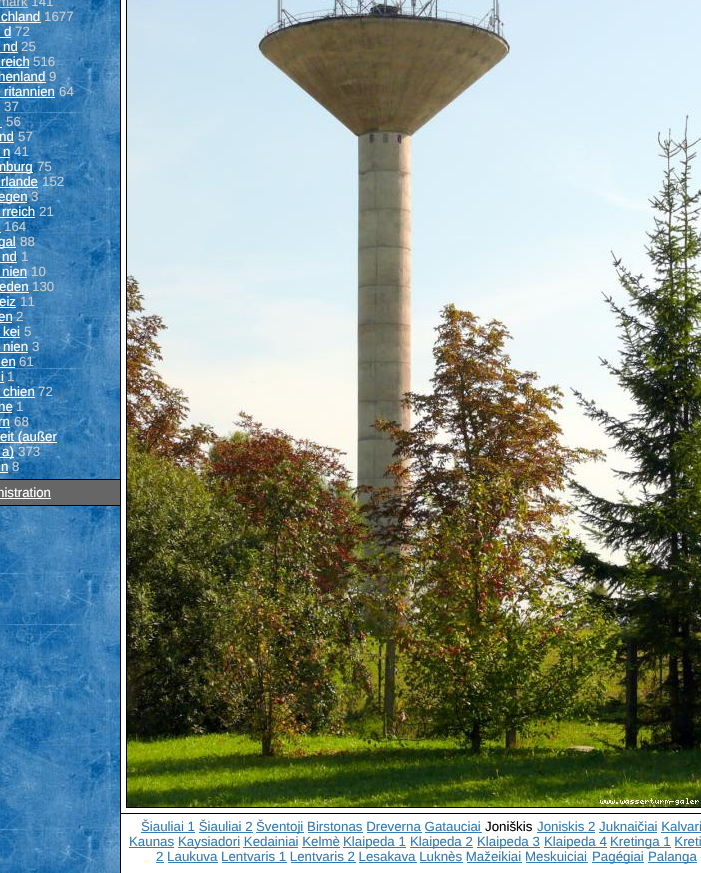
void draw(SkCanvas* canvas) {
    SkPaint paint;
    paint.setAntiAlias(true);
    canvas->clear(0xFFFFFFFF);
    canvas->drawImageRect(SkImages::DeferredFromEncodedData(SkData::MakeFromFileName("img1.png")), SkRect::MakeXYWH(0, 0, 120, 873), SkSamplingOptions());
    SkFont font1(fontMgr->matchFamilyStyle("Liberation Sans", SkFontStyle::Normal()), 13.3f);
    font1.setSubpixel(true);
    paint.setColor(0xFFCCCCCC);
    canvas->drawString("mark 141", -2, 6, font1, paint);
    canvas->drawRect(SkRect::MakeXYWH(0, 7, 28, 1), paint);
    paint.setColor(0xFFFFFFFF);
    canvas->drawString("chland", 1, 21, font1, paint);
    canvas->drawRect(SkRect::MakeXYWH(0, 22, 41, 1), paint);
    paint.setColor(0xFFCCCCCC);
    canvas->drawString("1677", 44, 21, font1, paint);
    paint.setColor(0xFFFFFFFF);
    canvas->drawString("d", 4, 36, font1, paint);
    canvas->drawRect(SkRect::MakeXYWH(0, 37, 11, 1), paint);
    paint.setColor(0xFFCCCCCC);
    canvas->drawString("72", 15, 36, font1, paint);
    paint.setColor(0xFFFFFFFF);
    canvas->drawString("nd", 3, 51, font1, paint);
    canvas->drawRect(SkRect::MakeXYWH(0, 52, 18, 1), paint);
    paint.setColor(0xFFCCCCCC);
    canvas->drawString("25", 21, 51, font1, paint);
    paint.setColor(0xFFFFFFFF);
    canvas->drawString("reich", 1, 66, font1, paint);
    canvas->drawRect(SkRect::MakeXYWH(0, 67, 29, 1), paint);
    paint.setColor(0xFFCCCCCC);
    canvas->drawString("516", 33, 66, font1, paint);
    paint.setColor(0xFFFFFFFF);
    canvas->drawString("henland", -2, 81, font1, paint);
    canvas->drawRect(SkRect::MakeXYWH(0, 82, 46, 1), paint);
    paint.setColor(0xFFCCCCCC);
    canvas->drawString("9", 49, 81, font1, paint);
    paint.setColor(0xFFFFFFFF);
    canvas->drawString("ritannien", 4, 96, font1, paint);
    canvas->drawRect(SkRect::MakeXYWH(0, 97, 55, 1), paint);
    paint.setColor(0xFFCCCCCC);
    canvas->drawString("64", 59, 96, font1, paint);
    canvas->drawString("37", 4, 111, font1, paint);
    canvas->drawString("56", 6, 126, font1, paint);
    paint.setColor(0xFFFFFFFF);
    canvas->drawRect(SkRect::MakeXYWH(0, 127, 2, 1), paint);
    canvas->drawString("nd", -1, 141, font1, paint);
    canvas->drawRect(SkRect::MakeXYWH(0, 142, 14, 1), paint);
    paint.setColor(0xFFCCCCCC);
    canvas->drawString("57", 18, 141, font1, paint);
    paint.setColor(0xFFFFFFFF);
    canvas->drawString("n", 3, 156, font1, paint);
    canvas->drawRect(SkRect::MakeXYWH(0, 157, 10, 1), paint);
    paint.setColor(0xFFCCCCCC);
    canvas->drawString("41", 14, 156, font1, paint);
    paint.setColor(0xFFFFFFFF);
    canvas->drawRect(SkRect::MakeXYWH(0, 172, 33, 1), paint);
    canvas->drawString("mburg", -5, 171, font1, paint);
    paint.setColor(0xFFCCCCCC);
    canvas->drawString("75", 37, 171, font1, paint);
    paint.setColor(0xFFFFFFFF);
    canvas->drawString("rlande", 1, 186, font1, paint);
    canvas->drawRect(SkRect::MakeXYWH(0, 187, 38, 1), paint);
    paint.setColor(0xFFCCCCCC);
    canvas->drawString("152", 42, 186, font1, paint);
    paint.setColor(0xFFFFFFFF);
    canvas->drawRect(SkRect::MakeXYWH(0, 202, 27, 1), paint);
    canvas->drawString("egen", -2, 201, font1, paint);
    paint.setColor(0xFFCCCCCC);
    canvas->drawString("3", 31, 201, font1, paint);
    paint.setColor(0xFFFFFFFF);
    canvas->drawString("rreich", 2, 216, font1, paint);
    canvas->drawRect(SkRect::MakeXYWH(0, 217, 35, 1), paint);
    paint.setColor(0xFFCCCCCC);
    canvas->drawString("21", 39, 216, font1, paint);
    canvas->drawString("164", 4, 231, font1, paint);
    paint.setColor(0xFFFFFFFF);
    canvas->drawRect(SkRect::MakeXYWH(0, 232, 1, 1), paint);
    canvas->drawRect(SkRect::MakeXYWH(0, 247, 16, 1), paint);
    canvas->drawString("gal", -2, 246, font1, paint);
    paint.setColor(0xFFCCCCCC);
    canvas->drawString("88", 20, 246, font1, paint);
    paint.setColor(0xFFFFFFFF);
    canvas->drawString("nd", 2, 261, font1, paint);
    canvas->drawRect(SkRect::MakeXYWH(0, 262, 17, 1), paint);
    paint.setColor(0xFFCCCCCC);
    canvas->drawString("1", 21, 261, font1, paint);
    paint.setColor(0xFFFFFFFF);
    canvas->drawString("nien", 2, 276, font1, paint);
    canvas->drawRect(SkRect::MakeXYWH(0, 277, 27, 1), paint);
    paint.setColor(0xFFCCCCCC);
    canvas->drawString("10", 31, 276, font1, paint);
    paint.setColor(0xFFFFFFFF);
    canvas->drawString("eden", -1, 291, font1, paint);
    canvas->drawRect(SkRect::MakeXYWH(0, 292, 29, 1), paint);
    paint.setColor(0xFFCCCCCC);
    canvas->drawString("130", 32, 291, font1, paint);
    paint.setColor(0xFFFFFFFF);
    canvas->drawString("eiz", -1, 306, font1, paint);
    canvas->drawRect(SkRect::MakeXYWH(0, 307, 16, 1), paint);
    paint.setColor(0xFFCCCCCC);
    canvas->drawString("11", 20, 306, font1, paint);
    paint.setColor(0xFFFFFFFF);
    canvas->drawString("en", -2, 321, font1, paint);
    canvas->drawRect(SkRect::MakeXYWH(0, 322, 12, 1), paint);
    paint.setColor(0xFFCCCCCC);
    canvas->drawString("2", 16, 321, font1, paint);
    paint.setColor(0xFFFFFFFF);
    canvas->drawString("kei", 3, 336, font1, paint);
    canvas->drawRect(SkRect::MakeXYWH(0, 337, 20, 1), paint);
    paint.setColor(0xFFCCCCCC);
    canvas->drawString("5", 24, 336, font1, paint);
    paint.setColor(0xFFFFFFFF);
    canvas->drawString("nien", 3, 351, font1, paint);
    canvas->drawRect(SkRect::MakeXYWH(0, 352, 28, 1), paint);
    paint.setColor(0xFFCCCCCC);
    canvas->drawString("3", 32, 351, font1, paint);
    paint.setColor(0xFFFFFFFF);
    canvas->drawString("en", 1, 366, font1, paint);
    canvas->drawRect(SkRect::MakeXYWH(0, 367, 15, 1), paint);
    paint.setColor(0xFFCCCCCC);
    canvas->drawString("61", 19, 366, font1, paint);
    paint.setColor(0xFFFFFFFF);
    canvas->drawString("i", 1, 381, font1, paint);
    canvas->drawRect(SkRect::MakeXYWH(0, 382, 4, 1), paint);
    paint.setColor(0xFFCCCCCC);
    canvas->drawString("1", 7, 381, font1, paint);
    paint.setColor(0xFFFFFFFF);
    canvas->drawString("chien", 3, 396, font1, paint);
    canvas->drawRect(SkRect::MakeXYWH(0, 397, 35, 1), paint);
    paint.setColor(0xFFCCCCCC);
    canvas->drawString("72", 38, 396, font1, paint);
    paint.setColor(0xFFFFFFFF);
    canvas->drawString("ne", -2, 411, font1, paint);
    canvas->drawRect(SkRect::MakeXYWH(0, 412, 12, 1), paint);
    paint.setColor(0xFFCCCCCC);
    canvas->drawString("1", 16, 411, font1, paint);
    paint.setColor(0xFFFFFFFF);
    canvas->drawString("rn", -2, 426, font1, paint);
    canvas->drawRect(SkRect::MakeXYWH(0, 427, 10, 1), paint);
    paint.setColor(0xFFCCCCCC);
    canvas->drawString("68", 14, 426, font1, paint);
    paint.setColor(0xFFFFFFFF);
    canvas->drawRect(SkRect::MakeXYWH(0, 442, 57, 1), paint);
    canvas->drawString("eit (außer", 0, 441, font1, paint);
    canvas->drawRect(SkRect::MakeXYWH(0, 457, 14, 1), paint);
    canvas->drawString("a)", 2, 456, font1, paint);
    paint.setColor(0xFFCCCCCC);
    canvas->drawString("373", 18, 456, font1, paint);
    paint.setColor(0xFFFFFFFF);
    canvas->drawString("n", 1, 471, font1, paint);
    canvas->drawRect(SkRect::MakeXYWH(0, 472, 8, 1), paint);
    paint.setColor(0xFFCCCCCC);
    canvas->drawString("8", 12, 471, font1, paint);
    paint.setColor(0xFF000000);
    canvas->drawRect(SkRect::MakeXYWH(0, 479, 120, 1), paint);
    paint.setColor(0xFF666666);
    canvas->drawRect(SkRect::MakeXYWH(0, 480, 120, 25), paint);
    paint.setColor(0xFFFFFFFF);
    canvas->drawString("nistration", -3, 497, font1, paint);
    canvas->drawRect(SkRect::MakeXYWH(0, 498, 51, 1), paint);
    paint.setColor(0xFF000000);
    canvas->drawRect(SkRect::MakeXYWH(0, 505, 120, 1), paint);
    canvas->drawRect(SkRect::MakeXYWH(120, 0, 1, 873), paint);
    paint.setStyle(SkPaint::kStroke_Style);
    paint.setStrokeWidth(1);
    canvas->drawRect(SkRect::MakeXYWH(126.5f, -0.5f, 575, 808), paint);
    canvas->drawImageRect(SkImages::DeferredFromEncodedData(SkData::MakeFromFileName("img2.png")), SkRect::MakeXYWH(127, 0, 574, 807), SkSamplingOptions());
    paint.setStyle(SkPaint::kFill_Style);
    canvas->drawRect(SkRect::MakeXYWH(121, 813, 580, 1), paint);
    paint.setColor(0xFF337BB3);
    canvas->drawString("Šiauliai 1 Šiauliai 2", 141, 831, font1, paint);
    canvas->drawRect(SkRect::MakeXYWH(141, 832, 54, 1), paint);
    canvas->drawRect(SkRect::MakeXYWH(256, 832, 48, 1), paint);
    canvas->drawString("Šventoji Birstonas Dreverna Gatauciai", 256, 831, font1, paint);
    paint.setColor(0xFF000000);
    canvas->drawString("Joniškis", 485, 831, font1, paint);
    paint.setColor(0xFF337BB3);
    canvas->drawString("Joniskis 2 Juknaičiai Kalvari", 537, 831, font1, paint);
    canvas->drawRect(SkRect::MakeXYWH(537, 832, 58, 1), paint);
    canvas->drawRect(SkRect::MakeXYWH(199, 832, 54, 1), paint);
    canvas->drawRect(SkRect::MakeXYWH(308, 832, 55, 1), paint);
    canvas->drawRect(SkRect::MakeXYWH(367, 832, 55, 1), paint);
    canvas->drawRect(SkRect::MakeXYWH(425, 832, 57, 1), paint);
    canvas->drawRect(SkRect::MakeXYWH(599, 832, 58, 1), paint);
    canvas->drawRect(SkRect::MakeXYWH(661, 832, 40, 1), paint);
    canvas->drawString("Kaunas", 129, 846, font1, paint);
    canvas->drawRect(SkRect::MakeXYWH(129, 847, 45, 1), paint);
    canvas->drawRect(SkRect::MakeXYWH(178, 847, 62, 1), paint);
    canvas->drawString("Kaysiadori Kedainiai Kelmè", 178, 846, font1, paint);
    canvas->drawRect(SkRect::MakeXYWH(343, 847, 63, 1), paint);
    canvas->drawString("Klaipeda 1", 343, 846, font1, paint);
    canvas->drawRect(SkRect::MakeXYWH(410, 847, 63, 1), paint);
    canvas->drawString("Klaipeda 2", 410, 846, font1, paint);
    canvas->drawRect(SkRect::MakeXYWH(477, 847, 63, 1), paint);
    canvas->drawString("Klaipeda 3", 477, 846, font1, paint);
    canvas->drawRect(SkRect::MakeXYWH(544, 847, 63, 1), paint);
    canvas->drawString("Klaipeda 4", 544, 846, font1, paint);
    canvas->drawRect(SkRect::MakeXYWH(610, 847, 61, 1), paint);
    canvas->drawString("Kretinga 1 Kreti", 610, 846, font1, paint);
    canvas->drawRect(SkRect::MakeXYWH(243, 847, 55, 1), paint);
    canvas->drawRect(SkRect::MakeXYWH(302, 847, 38, 1), paint);
    canvas->drawString("2 Laukuva Lentvaris 1 Lentvaris 2 Lesakava Luknès Mažeikiai Meskuiciai", 156, 861, font1, paint);
    canvas->drawRect(SkRect::MakeXYWH(675, 847, 26, 1), paint);
    canvas->drawRect(SkRect::MakeXYWH(156, 862, 8, 1), paint);
    canvas->drawRect(SkRect::MakeXYWH(592, 862, 52, 1), paint);
    canvas->drawString("Pagégiai", 592, 861, font1, paint);
    canvas->drawRect(SkRect::MakeXYWH(648, 862, 49, 1), paint);
    canvas->drawString("Palanga", 648, 861, font1, paint);
    canvas->drawRect(SkRect::MakeXYWH(168, 862, 50, 1), paint);
    canvas->drawRect(SkRect::MakeXYWH(222, 862, 65, 1), paint);
    canvas->drawRect(SkRect::MakeXYWH(291, 862, 65, 1), paint);
    canvas->drawRect(SkRect::MakeXYWH(359, 862, 58, 1), paint);
    canvas->drawRect(SkRect::MakeXYWH(420, 862, 43, 1), paint);
    canvas->drawRect(SkRect::MakeXYWH(467, 862, 55, 1), paint);
    canvas->drawRect(SkRect::MakeXYWH(526, 862, 62, 1), paint);
}
